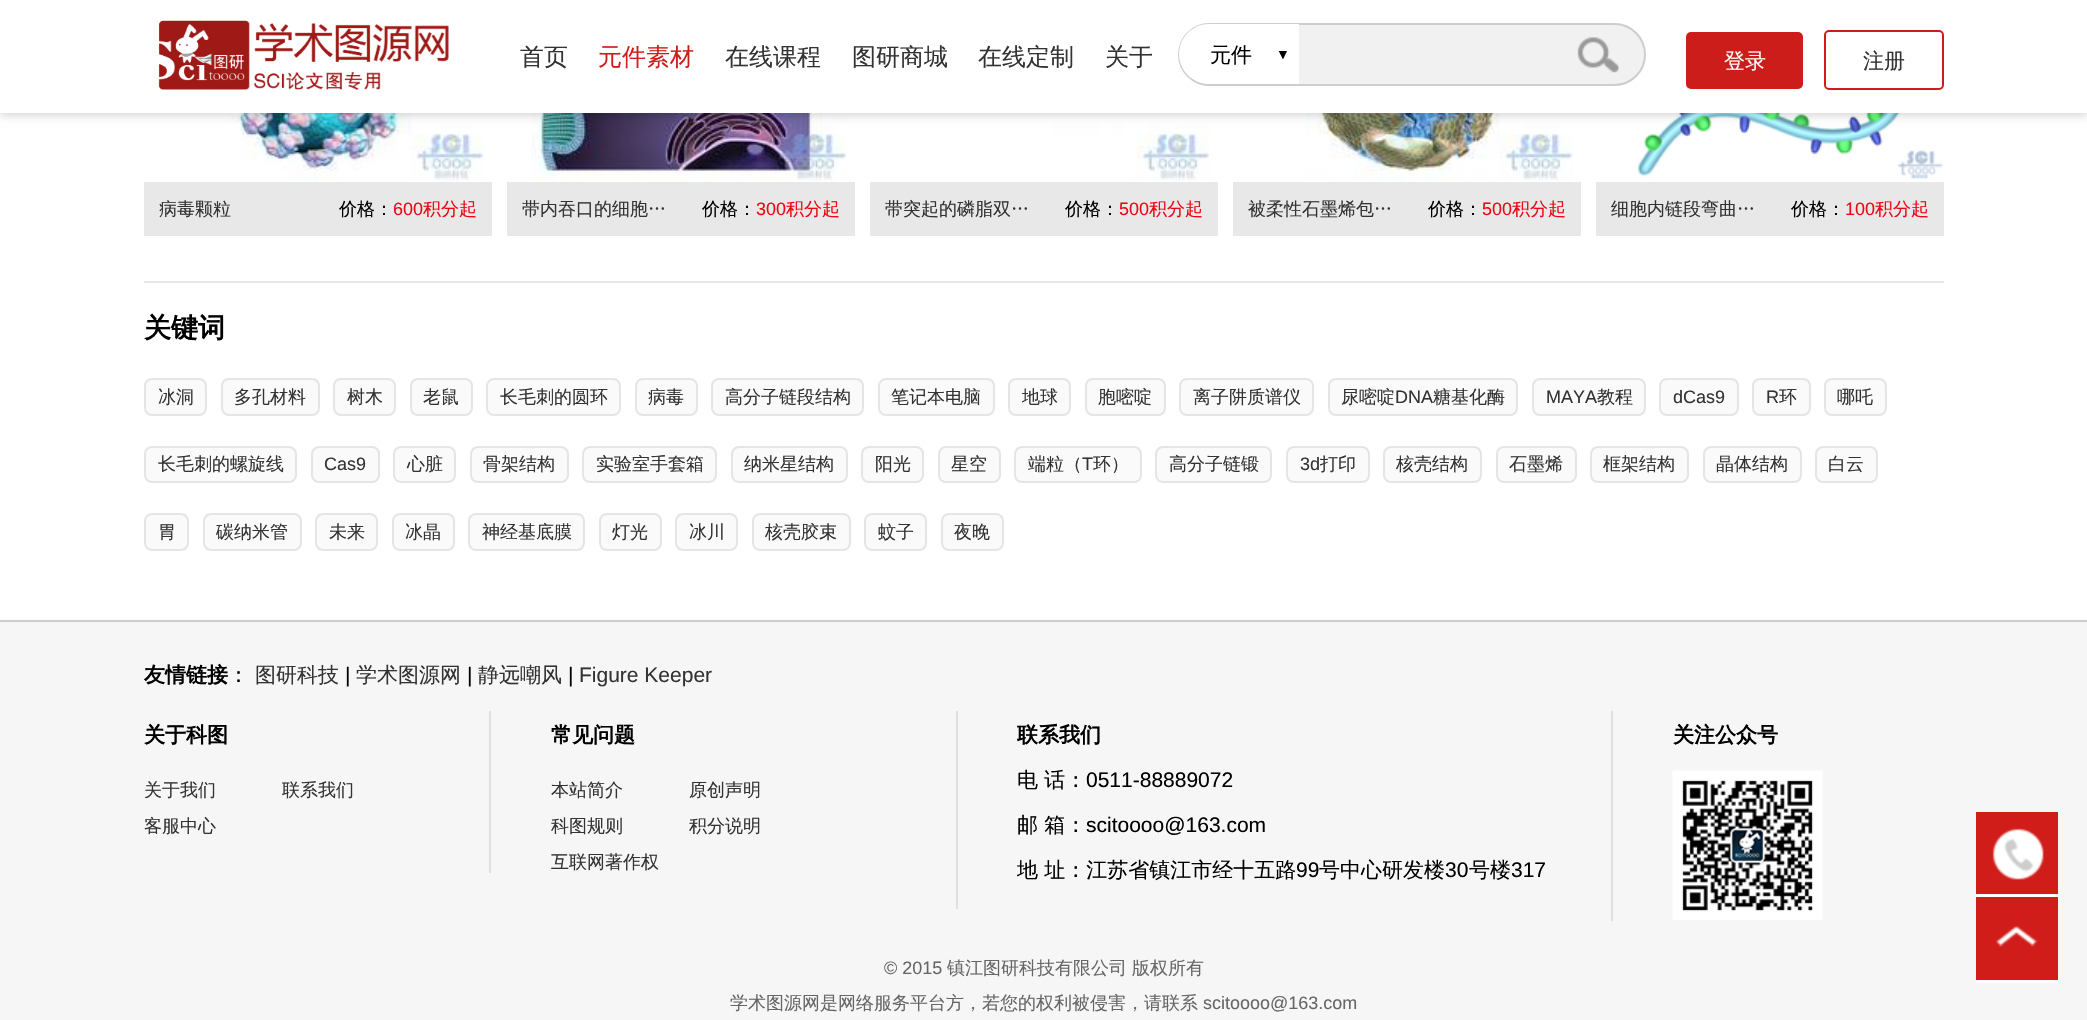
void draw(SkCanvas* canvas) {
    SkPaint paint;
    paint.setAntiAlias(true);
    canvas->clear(0xFFFFFFFF);
    canvas->drawImageRect(SkImages::DeferredFromEncodedData(SkData::MakeFromFileName("img3.png")), SkRect::MakeXYWH(216, 113, 268, 68), SkSamplingOptions());
    canvas->drawImageRect(SkImages::DeferredFromEncodedData(SkData::MakeFromFileName("img4.png")), SkRect::MakeXYWH(531, 113, 316, 68), SkSamplingOptions());
    canvas->drawImageRect(SkImages::DeferredFromEncodedData(SkData::MakeFromFileName("img5.png")), SkRect::MakeXYWH(870, 113, 340, 68), SkSamplingOptions());
    canvas->drawImageRect(SkImages::DeferredFromEncodedData(SkData::MakeFromFileName("img6.png")), SkRect::MakeXYWH(1305, 113, 268, 68), SkSamplingOptions());
    canvas->drawImageRect(SkImages::DeferredFromEncodedData(SkData::MakeFromFileName("img7.png")), SkRect::MakeXYWH(1637, 113, 306, 67), SkSamplingOptions());
    paint.setColor(0x26000000);
    paint.setMaskFilter(SkMaskFilter::MakeBlur(kNormal_SkBlurStyle, 4));
    canvas->drawRect(SkRect::MakeXYWH(0, 3, 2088, 113), paint);
    paint.setMaskFilter(nullptr);
    paint.setColor(0xFFFFFFFF);
    canvas->drawRect(SkRect::MakeXYWH(0, 0, 2087, 113), paint);
    canvas->drawImageRect(SkImages::DeferredFromEncodedData(SkData::MakeFromFileName("img1.png")), SkRect::MakeXYWH(158, 20, 291, 70), SkSamplingOptions());
    SkFont font1(fontMgr->matchFamilyStyle("WenQuanYi Zen Hei", SkFontStyle(500, SkFontStyle::kNormal_Width, SkFontStyle::kUpright_Slant)), 24);
    font1.setSubpixel(true);
    paint.setColor(0xFF333333);
    canvas->drawString("首页", 520, 65, font1, paint);
    paint.setColor(0xFFCD1D1A);
    canvas->drawString("元件素材", 598, 65, font1, paint);
    paint.setColor(0xFF333333);
    canvas->drawString("在线课程", 725, 65, font1, paint);
    canvas->drawString("图研商城", 852, 65, font1, paint);
    canvas->drawString("在线定制", 978, 65, font1, paint);
    canvas->drawString("关于", 1105, 65, font1, paint);
    paint.setColor(0xFFF1F1F1);
    canvas->drawRoundRect(SkRect::MakeXYWH(1179, 24, 466, 61), 30.5f, 30.5f, paint);
    paint.setStyle(SkPaint::kStroke_Style);
    paint.setStrokeWidth(2);
    paint.setColor(0xFFCDCDCD);
    canvas->drawRoundRect(SkRect::MakeXYWH(1179, 24, 466, 61), 30.5f, 30.5f, paint);
    paint.setStyle(SkPaint::kFill_Style);
    paint.setColor(0xFFFFFFFF);
    canvas->drawPath(SkPathBuilder().moveTo(1209, 24).lineTo(1299, 24).lineTo(1299, 84).lineTo(1209, 84).cubicTo(1192.5f, 84, 1179, 70.5f, 1179, 54).cubicTo(1179, 37.5f, 1192.5f, 24, 1209, 24).close().detach(), paint);
    SkFont font2(fontMgr->matchFamilyStyle("WenQuanYi Zen Hei", SkFontStyle(500, SkFontStyle::kNormal_Width, SkFontStyle::kUpright_Slant)), 21);
    font2.setSubpixel(true);
    paint.setColor(0xFF000000);
    canvas->drawString("元件", 1210, 62, font2, paint);
    SkFont font3(fontMgr->matchFamilyStyle("Liberation Sans", SkFontStyle::Normal()), 14);
    font3.setSubpixel(true);
    canvas->drawString("▼", 1276, 59, font3, paint);
    canvas->drawImageRect(SkImages::DeferredFromEncodedData(SkData::MakeFromFileName("img2.png")), SkRect::MakeXYWH(1577, 37, 42, 36), SkSamplingOptions());
    paint.setColor(0xFFCD1D1A);
    canvas->drawRoundRect(SkRect::MakeXYWH(1686, 32, 117, 57), 5, 5, paint);
    paint.setColor(0xFFFFFFFF);
    canvas->drawString("登录", 1724, 68, font2, paint);
    paint.setStyle(SkPaint::kStroke_Style);
    paint.setColor(0xFFCD1D1A);
    canvas->drawRoundRect(SkRect::MakeXYWH(1825, 31, 118, 58), 4, 4, paint);
    paint.setStyle(SkPaint::kFill_Style);
    paint.setColor(0xFF333333);
    canvas->drawString("注册", 1863, 68, font2, paint);
    paint.setColor(0xFFE8E8E8);
    canvas->drawRect(SkRect::MakeXYWH(144, 182, 348, 54), paint);
    SkFont font4(fontMgr->matchFamilyStyle("WenQuanYi Zen Hei", SkFontStyle(500, SkFontStyle::kNormal_Width, SkFontStyle::kUpright_Slant)), 18);
    font4.setSubpixel(true);
    paint.setColor(0xFF333333);
    canvas->drawString("病毒颗粒", 159, 215, font4, paint);
    paint.setColor(0xFF000000);
    canvas->drawString("价格：", 339, 215, font4, paint);
    SkFont font5(fontMgr->matchFamilyStyle("Liberation Sans", SkFontStyle::Normal()), 18);
    font5.setSubpixel(true);
    paint.setColor(0xFFEC0715);
    canvas->drawString("600", 393, 215, font5, paint);
    canvas->drawString("积分起", 423, 215, font4, paint);
    paint.setColor(0xFFE8E8E8);
    canvas->drawRect(SkRect::MakeXYWH(507, 182, 348, 54), paint);
    paint.setColor(0xFF333333);
    canvas->drawString("带内吞口的细胞…", 522, 215, font4, paint);
    paint.setColor(0xFF000000);
    canvas->drawString("价格：", 702, 215, font4, paint);
    paint.setColor(0xFFEC0715);
    canvas->drawString("300", 756, 215, font5, paint);
    canvas->drawString("积分起", 786, 215, font4, paint);
    paint.setColor(0xFFE8E8E8);
    canvas->drawRect(SkRect::MakeXYWH(870, 182, 348, 54), paint);
    paint.setColor(0xFF333333);
    canvas->drawString("带突起的磷脂双…", 885, 215, font4, paint);
    paint.setColor(0xFF000000);
    canvas->drawString("价格：", 1065, 215, font4, paint);
    paint.setColor(0xFFEC0715);
    canvas->drawString("500", 1119, 215, font5, paint);
    canvas->drawString("积分起", 1149, 215, font4, paint);
    paint.setColor(0xFFE8E8E8);
    canvas->drawRect(SkRect::MakeXYWH(1233, 182, 348, 54), paint);
    paint.setColor(0xFF333333);
    canvas->drawString("被柔性石墨烯包…", 1248, 215, font4, paint);
    paint.setColor(0xFF000000);
    canvas->drawString("价格：", 1428, 215, font4, paint);
    paint.setColor(0xFFEC0715);
    canvas->drawString("500", 1482, 215, font5, paint);
    canvas->drawString("积分起", 1512, 215, font4, paint);
    paint.setColor(0xFFE8E8E8);
    canvas->drawRect(SkRect::MakeXYWH(1596, 182, 348, 54), paint);
    paint.setColor(0xFF333333);
    canvas->drawString("细胞内链段弯曲…", 1611, 215, font4, paint);
    paint.setColor(0xFF000000);
    canvas->drawString("价格：", 1791, 215, font4, paint);
    paint.setColor(0xFFEC0715);
    canvas->drawString("100", 1845, 215, font5, paint);
    canvas->drawString("积分起", 1875, 215, font4, paint);
    paint.setColor(0xFFE6E6E6);
    canvas->drawRect(SkRect::MakeXYWH(144, 281, 1800, 2), paint);
    SkFont font6(fontMgr->matchFamilyStyle("WenQuanYi Zen Hei", SkFontStyle::Bold()), 27);
    font6.setSubpixel(true);
    paint.setColor(0xFF000000);
    canvas->drawString("关键词", 144, 337, font6, paint);
    paint.setColor(0xFFFAFAFA);
    canvas->drawRoundRect(SkRect::MakeXYWH(145, 379, 61, 36), 7, 7, paint);
    paint.setStyle(SkPaint::kStroke_Style);
    paint.setColor(0xFFE5E5E5);
    canvas->drawRoundRect(SkRect::MakeXYWH(145, 379, 61, 36), 7, 7, paint);
    paint.setStyle(SkPaint::kFill_Style);
    paint.setColor(0xFF333333);
    canvas->drawString("冰洞", 158, 403, font4, paint);
    paint.setColor(0xFFFAFAFA);
    canvas->drawRoundRect(SkRect::MakeXYWH(222, 379, 97, 36), 7, 7, paint);
    paint.setStyle(SkPaint::kStroke_Style);
    paint.setColor(0xFFE5E5E5);
    canvas->drawRoundRect(SkRect::MakeXYWH(222, 379, 97, 36), 7, 7, paint);
    paint.setStyle(SkPaint::kFill_Style);
    paint.setColor(0xFF333333);
    canvas->drawString("多孔材料", 234, 403, font4, paint);
    paint.setColor(0xFFFAFAFA);
    canvas->drawRoundRect(SkRect::MakeXYWH(334, 379, 61, 36), 7, 7, paint);
    paint.setStyle(SkPaint::kStroke_Style);
    paint.setColor(0xFFE5E5E5);
    canvas->drawRoundRect(SkRect::MakeXYWH(334, 379, 61, 36), 7, 7, paint);
    paint.setStyle(SkPaint::kFill_Style);
    paint.setColor(0xFF333333);
    canvas->drawString("树木", 347, 403, font4, paint);
    paint.setColor(0xFFFAFAFA);
    canvas->drawRoundRect(SkRect::MakeXYWH(411, 379, 61, 36), 7, 7, paint);
    paint.setStyle(SkPaint::kStroke_Style);
    paint.setColor(0xFFE5E5E5);
    canvas->drawRoundRect(SkRect::MakeXYWH(411, 379, 61, 36), 7, 7, paint);
    paint.setStyle(SkPaint::kFill_Style);
    paint.setColor(0xFF333333);
    canvas->drawString("老鼠", 423, 403, font4, paint);
    paint.setColor(0xFFFAFAFA);
    canvas->drawRoundRect(SkRect::MakeXYWH(487, 379, 133, 36), 7, 7, paint);
    paint.setStyle(SkPaint::kStroke_Style);
    paint.setColor(0xFFE5E5E5);
    canvas->drawRoundRect(SkRect::MakeXYWH(487, 379, 133, 36), 7, 7, paint);
    paint.setStyle(SkPaint::kFill_Style);
    paint.setColor(0xFF333333);
    canvas->drawString("长毛刺的圆环", 500, 403, font4, paint);
    paint.setColor(0xFFFAFAFA);
    canvas->drawRoundRect(SkRect::MakeXYWH(636, 379, 61, 36), 7, 7, paint);
    paint.setStyle(SkPaint::kStroke_Style);
    paint.setColor(0xFFE5E5E5);
    canvas->drawRoundRect(SkRect::MakeXYWH(636, 379, 61, 36), 7, 7, paint);
    paint.setStyle(SkPaint::kFill_Style);
    paint.setColor(0xFF333333);
    canvas->drawString("病毒", 648, 403, font4, paint);
    paint.setColor(0xFFFAFAFA);
    canvas->drawRoundRect(SkRect::MakeXYWH(712, 379, 151, 36), 7, 7, paint);
    paint.setStyle(SkPaint::kStroke_Style);
    paint.setColor(0xFFE5E5E5);
    canvas->drawRoundRect(SkRect::MakeXYWH(712, 379, 151, 36), 7, 7, paint);
    paint.setStyle(SkPaint::kFill_Style);
    paint.setColor(0xFF333333);
    canvas->drawString("高分子链段结构", 725, 403, font4, paint);
    paint.setColor(0xFFFAFAFA);
    canvas->drawRoundRect(SkRect::MakeXYWH(879, 379, 115, 36), 7, 7, paint);
    paint.setStyle(SkPaint::kStroke_Style);
    paint.setColor(0xFFE5E5E5);
    canvas->drawRoundRect(SkRect::MakeXYWH(879, 379, 115, 36), 7, 7, paint);
    paint.setStyle(SkPaint::kFill_Style);
    paint.setColor(0xFF333333);
    canvas->drawString("笔记本电脑", 891, 403, font4, paint);
    paint.setColor(0xFFFAFAFA);
    canvas->drawRoundRect(SkRect::MakeXYWH(1009, 379, 61, 36), 7, 7, paint);
    paint.setStyle(SkPaint::kStroke_Style);
    paint.setColor(0xFFE5E5E5);
    canvas->drawRoundRect(SkRect::MakeXYWH(1009, 379, 61, 36), 7, 7, paint);
    paint.setStyle(SkPaint::kFill_Style);
    paint.setColor(0xFF333333);
    canvas->drawString("地球", 1022, 403, font4, paint);
    paint.setColor(0xFFFAFAFA);
    canvas->drawRoundRect(SkRect::MakeXYWH(1086, 379, 79, 36), 7, 7, paint);
    paint.setStyle(SkPaint::kStroke_Style);
    paint.setColor(0xFFE5E5E5);
    canvas->drawRoundRect(SkRect::MakeXYWH(1086, 379, 79, 36), 7, 7, paint);
    paint.setStyle(SkPaint::kFill_Style);
    paint.setColor(0xFF333333);
    canvas->drawString("胞嘧啶", 1098, 403, font4, paint);
    paint.setColor(0xFFFAFAFA);
    canvas->drawRoundRect(SkRect::MakeXYWH(1180, 379, 133, 36), 7, 7, paint);
    paint.setStyle(SkPaint::kStroke_Style);
    paint.setColor(0xFFE5E5E5);
    canvas->drawRoundRect(SkRect::MakeXYWH(1180, 379, 133, 36), 7, 7, paint);
    paint.setStyle(SkPaint::kFill_Style);
    paint.setColor(0xFF333333);
    canvas->drawString("离子阱质谱仪", 1193, 403, font4, paint);
    paint.setColor(0xFFFAFAFA);
    canvas->drawRoundRect(SkRect::MakeXYWH(1329, 379, 188, 36), 7, 7, paint);
    paint.setStyle(SkPaint::kStroke_Style);
    paint.setColor(0xFFE5E5E5);
    canvas->drawRoundRect(SkRect::MakeXYWH(1329, 379, 188, 36), 7, 7, paint);
    paint.setStyle(SkPaint::kFill_Style);
    paint.setColor(0xFF333333);
    canvas->drawString("尿嘧啶", 1341, 403, font4, paint);
    canvas->drawString("DNA", 1395, 403, font5, paint);
    canvas->drawString("糖基化酶", 1433, 403, font4, paint);
    paint.setColor(0xFFFAFAFA);
    canvas->drawRoundRect(SkRect::MakeXYWH(1533, 379, 112, 36), 7, 7, paint);
    paint.setStyle(SkPaint::kStroke_Style);
    paint.setColor(0xFFE5E5E5);
    canvas->drawRoundRect(SkRect::MakeXYWH(1533, 379, 112, 36), 7, 7, paint);
    paint.setStyle(SkPaint::kFill_Style);
    paint.setColor(0xFF333333);
    canvas->drawString("MAYA", 1546, 403, font5, paint);
    canvas->drawString("教程", 1597, 403, font4, paint);
    paint.setColor(0xFFFAFAFA);
    canvas->drawRoundRect(SkRect::MakeXYWH(1660, 379, 78, 36), 7, 7, paint);
    paint.setStyle(SkPaint::kStroke_Style);
    paint.setColor(0xFFE5E5E5);
    canvas->drawRoundRect(SkRect::MakeXYWH(1660, 379, 78, 36), 7, 7, paint);
    paint.setStyle(SkPaint::kFill_Style);
    paint.setColor(0xFF333333);
    canvas->drawString("dCas9", 1673, 403, font5, paint);
    paint.setColor(0xFFFAFAFA);
    canvas->drawRoundRect(SkRect::MakeXYWH(1753, 379, 57, 36), 7, 7, paint);
    paint.setStyle(SkPaint::kStroke_Style);
    paint.setColor(0xFFE5E5E5);
    canvas->drawRoundRect(SkRect::MakeXYWH(1753, 379, 57, 36), 7, 7, paint);
    paint.setStyle(SkPaint::kFill_Style);
    paint.setColor(0xFF333333);
    canvas->drawString("R", 1766, 403, font5, paint);
    canvas->drawString("环", 1779, 403, font4, paint);
    paint.setColor(0xFFFAFAFA);
    canvas->drawRoundRect(SkRect::MakeXYWH(1825, 379, 61, 36), 7, 7, paint);
    paint.setStyle(SkPaint::kStroke_Style);
    paint.setColor(0xFFE5E5E5);
    canvas->drawRoundRect(SkRect::MakeXYWH(1825, 379, 61, 36), 7, 7, paint);
    paint.setStyle(SkPaint::kFill_Style);
    paint.setColor(0xFF333333);
    canvas->drawString("哪吒", 1837, 403, font4, paint);
    paint.setColor(0xFFFAFAFA);
    canvas->drawRoundRect(SkRect::MakeXYWH(145, 447, 151, 35), 7, 7, paint);
    paint.setStyle(SkPaint::kStroke_Style);
    paint.setColor(0xFFE5E5E5);
    canvas->drawRoundRect(SkRect::MakeXYWH(145, 447, 151, 35), 7, 7, paint);
    paint.setStyle(SkPaint::kFill_Style);
    paint.setColor(0xFF333333);
    canvas->drawString("长毛刺的螺旋线", 158, 470, font4, paint);
    paint.setColor(0xFFFAFAFA);
    canvas->drawRoundRect(SkRect::MakeXYWH(312, 447, 67, 35), 7, 7, paint);
    paint.setStyle(SkPaint::kStroke_Style);
    paint.setColor(0xFFE5E5E5);
    canvas->drawRoundRect(SkRect::MakeXYWH(312, 447, 67, 35), 7, 7, paint);
    paint.setStyle(SkPaint::kFill_Style);
    paint.setColor(0xFF333333);
    canvas->drawString("Cas9", 324, 470, font5, paint);
    paint.setColor(0xFFFAFAFA);
    canvas->drawRoundRect(SkRect::MakeXYWH(394, 447, 61, 35), 7, 7, paint);
    paint.setStyle(SkPaint::kStroke_Style);
    paint.setColor(0xFFE5E5E5);
    canvas->drawRoundRect(SkRect::MakeXYWH(394, 447, 61, 35), 7, 7, paint);
    paint.setStyle(SkPaint::kFill_Style);
    paint.setColor(0xFF333333);
    canvas->drawString("心脏", 407, 470, font4, paint);
    paint.setColor(0xFFFAFAFA);
    canvas->drawRoundRect(SkRect::MakeXYWH(471, 447, 97, 35), 7, 7, paint);
    paint.setStyle(SkPaint::kStroke_Style);
    paint.setColor(0xFFE5E5E5);
    canvas->drawRoundRect(SkRect::MakeXYWH(471, 447, 97, 35), 7, 7, paint);
    paint.setStyle(SkPaint::kFill_Style);
    paint.setColor(0xFF333333);
    canvas->drawString("骨架结构", 483, 470, font4, paint);
    paint.setColor(0xFFFAFAFA);
    canvas->drawRoundRect(SkRect::MakeXYWH(583, 447, 133, 35), 7, 7, paint);
    paint.setStyle(SkPaint::kStroke_Style);
    paint.setColor(0xFFE5E5E5);
    canvas->drawRoundRect(SkRect::MakeXYWH(583, 447, 133, 35), 7, 7, paint);
    paint.setStyle(SkPaint::kFill_Style);
    paint.setColor(0xFF333333);
    canvas->drawString("实验室手套箱", 596, 470, font4, paint);
    paint.setColor(0xFFFAFAFA);
    canvas->drawRoundRect(SkRect::MakeXYWH(732, 447, 115, 35), 7, 7, paint);
    paint.setStyle(SkPaint::kStroke_Style);
    paint.setColor(0xFFE5E5E5);
    canvas->drawRoundRect(SkRect::MakeXYWH(732, 447, 115, 35), 7, 7, paint);
    paint.setStyle(SkPaint::kFill_Style);
    paint.setColor(0xFF333333);
    canvas->drawString("纳米星结构", 744, 470, font4, paint);
    paint.setColor(0xFFFAFAFA);
    canvas->drawRoundRect(SkRect::MakeXYWH(862, 447, 61, 35), 7, 7, paint);
    paint.setStyle(SkPaint::kStroke_Style);
    paint.setColor(0xFFE5E5E5);
    canvas->drawRoundRect(SkRect::MakeXYWH(862, 447, 61, 35), 7, 7, paint);
    paint.setStyle(SkPaint::kFill_Style);
    paint.setColor(0xFF333333);
    canvas->drawString("阳光", 875, 470, font4, paint);
    paint.setColor(0xFFFAFAFA);
    canvas->drawRoundRect(SkRect::MakeXYWH(939, 447, 61, 35), 7, 7, paint);
    paint.setStyle(SkPaint::kStroke_Style);
    paint.setColor(0xFFE5E5E5);
    canvas->drawRoundRect(SkRect::MakeXYWH(939, 447, 61, 35), 7, 7, paint);
    paint.setStyle(SkPaint::kFill_Style);
    paint.setColor(0xFF333333);
    canvas->drawString("星空", 951, 470, font4, paint);
    paint.setColor(0xFFFAFAFA);
    canvas->drawRoundRect(SkRect::MakeXYWH(1015, 447, 126, 35), 7, 7, paint);
    paint.setStyle(SkPaint::kStroke_Style);
    paint.setColor(0xFFE5E5E5);
    canvas->drawRoundRect(SkRect::MakeXYWH(1015, 447, 126, 35), 7, 7, paint);
    paint.setStyle(SkPaint::kFill_Style);
    paint.setColor(0xFF333333);
    canvas->drawString("端粒（", 1028, 470, font4, paint);
    canvas->drawString("T", 1082, 470, font5, paint);
    canvas->drawString("环）", 1093, 470, font4, paint);
    paint.setColor(0xFFFAFAFA);
    canvas->drawRoundRect(SkRect::MakeXYWH(1156, 447, 115, 35), 7, 7, paint);
    paint.setStyle(SkPaint::kStroke_Style);
    paint.setColor(0xFFE5E5E5);
    canvas->drawRoundRect(SkRect::MakeXYWH(1156, 447, 115, 35), 7, 7, paint);
    paint.setStyle(SkPaint::kFill_Style);
    paint.setColor(0xFF333333);
    canvas->drawString("高分子链锻", 1169, 470, font4, paint);
    paint.setColor(0xFFFAFAFA);
    canvas->drawRoundRect(SkRect::MakeXYWH(1287, 447, 82, 35), 7, 7, paint);
    paint.setStyle(SkPaint::kStroke_Style);
    paint.setColor(0xFFE5E5E5);
    canvas->drawRoundRect(SkRect::MakeXYWH(1287, 447, 82, 35), 7, 7, paint);
    paint.setStyle(SkPaint::kFill_Style);
    paint.setColor(0xFF333333);
    canvas->drawString("3d", 1300, 470, font5, paint);
    canvas->drawString("打印", 1320, 470, font4, paint);
    paint.setColor(0xFFFAFAFA);
    canvas->drawRoundRect(SkRect::MakeXYWH(1384, 447, 97, 35), 7, 7, paint);
    paint.setStyle(SkPaint::kStroke_Style);
    paint.setColor(0xFFE5E5E5);
    canvas->drawRoundRect(SkRect::MakeXYWH(1384, 447, 97, 35), 7, 7, paint);
    paint.setStyle(SkPaint::kFill_Style);
    paint.setColor(0xFF333333);
    canvas->drawString("核壳结构", 1396, 470, font4, paint);
    paint.setColor(0xFFFAFAFA);
    canvas->drawRoundRect(SkRect::MakeXYWH(1497, 447, 79, 35), 7, 7, paint);
    paint.setStyle(SkPaint::kStroke_Style);
    paint.setColor(0xFFE5E5E5);
    canvas->drawRoundRect(SkRect::MakeXYWH(1497, 447, 79, 35), 7, 7, paint);
    paint.setStyle(SkPaint::kFill_Style);
    paint.setColor(0xFF333333);
    canvas->drawString("石墨烯", 1509, 470, font4, paint);
    paint.setColor(0xFFFAFAFA);
    canvas->drawRoundRect(SkRect::MakeXYWH(1591, 447, 97, 35), 7, 7, paint);
    paint.setStyle(SkPaint::kStroke_Style);
    paint.setColor(0xFFE5E5E5);
    canvas->drawRoundRect(SkRect::MakeXYWH(1591, 447, 97, 35), 7, 7, paint);
    paint.setStyle(SkPaint::kFill_Style);
    paint.setColor(0xFF333333);
    canvas->drawString("框架结构", 1603, 470, font4, paint);
    paint.setColor(0xFFFAFAFA);
    canvas->drawRoundRect(SkRect::MakeXYWH(1704, 447, 97, 35), 7, 7, paint);
    paint.setStyle(SkPaint::kStroke_Style);
    paint.setColor(0xFFE5E5E5);
    canvas->drawRoundRect(SkRect::MakeXYWH(1704, 447, 97, 35), 7, 7, paint);
    paint.setStyle(SkPaint::kFill_Style);
    paint.setColor(0xFF333333);
    canvas->drawString("晶体结构", 1716, 470, font4, paint);
    paint.setColor(0xFFFAFAFA);
    canvas->drawRoundRect(SkRect::MakeXYWH(1816, 447, 61, 35), 7, 7, paint);
    paint.setStyle(SkPaint::kStroke_Style);
    paint.setColor(0xFFE5E5E5);
    canvas->drawRoundRect(SkRect::MakeXYWH(1816, 447, 61, 35), 7, 7, paint);
    paint.setStyle(SkPaint::kFill_Style);
    paint.setColor(0xFF333333);
    canvas->drawString("白云", 1828, 470, font4, paint);
    paint.setColor(0xFFFAFAFA);
    canvas->drawRoundRect(SkRect::MakeXYWH(145, 514, 43, 36), 7, 7, paint);
    paint.setStyle(SkPaint::kStroke_Style);
    paint.setColor(0xFFE5E5E5);
    canvas->drawRoundRect(SkRect::MakeXYWH(145, 514, 43, 36), 7, 7, paint);
    paint.setStyle(SkPaint::kFill_Style);
    paint.setColor(0xFF333333);
    canvas->drawString("胃", 158, 538, font4, paint);
    paint.setColor(0xFFFAFAFA);
    canvas->drawRoundRect(SkRect::MakeXYWH(204, 514, 97, 36), 7, 7, paint);
    paint.setStyle(SkPaint::kStroke_Style);
    paint.setColor(0xFFE5E5E5);
    canvas->drawRoundRect(SkRect::MakeXYWH(204, 514, 97, 36), 7, 7, paint);
    paint.setStyle(SkPaint::kFill_Style);
    paint.setColor(0xFF333333);
    canvas->drawString("碳纳米管", 216, 538, font4, paint);
    paint.setColor(0xFFFAFAFA);
    canvas->drawRoundRect(SkRect::MakeXYWH(316, 514, 61, 36), 7, 7, paint);
    paint.setStyle(SkPaint::kStroke_Style);
    paint.setColor(0xFFE5E5E5);
    canvas->drawRoundRect(SkRect::MakeXYWH(316, 514, 61, 36), 7, 7, paint);
    paint.setStyle(SkPaint::kFill_Style);
    paint.setColor(0xFF333333);
    canvas->drawString("未来", 329, 538, font4, paint);
    paint.setColor(0xFFFAFAFA);
    canvas->drawRoundRect(SkRect::MakeXYWH(393, 514, 61, 36), 7, 7, paint);
    paint.setStyle(SkPaint::kStroke_Style);
    paint.setColor(0xFFE5E5E5);
    canvas->drawRoundRect(SkRect::MakeXYWH(393, 514, 61, 36), 7, 7, paint);
    paint.setStyle(SkPaint::kFill_Style);
    paint.setColor(0xFF333333);
    canvas->drawString("冰晶", 405, 538, font4, paint);
    paint.setColor(0xFFFAFAFA);
    canvas->drawRoundRect(SkRect::MakeXYWH(469, 514, 115, 36), 7, 7, paint);
    paint.setStyle(SkPaint::kStroke_Style);
    paint.setColor(0xFFE5E5E5);
    canvas->drawRoundRect(SkRect::MakeXYWH(469, 514, 115, 36), 7, 7, paint);
    paint.setStyle(SkPaint::kFill_Style);
    paint.setColor(0xFF333333);
    canvas->drawString("神经基底膜", 482, 538, font4, paint);
    paint.setColor(0xFFFAFAFA);
    canvas->drawRoundRect(SkRect::MakeXYWH(600, 514, 61, 36), 7, 7, paint);
    paint.setStyle(SkPaint::kStroke_Style);
    paint.setColor(0xFFE5E5E5);
    canvas->drawRoundRect(SkRect::MakeXYWH(600, 514, 61, 36), 7, 7, paint);
    paint.setStyle(SkPaint::kFill_Style);
    paint.setColor(0xFF333333);
    canvas->drawString("灯光", 612, 538, font4, paint);
    paint.setColor(0xFFFAFAFA);
    canvas->drawRoundRect(SkRect::MakeXYWH(676, 514, 61, 36), 7, 7, paint);
    paint.setStyle(SkPaint::kStroke_Style);
    paint.setColor(0xFFE5E5E5);
    canvas->drawRoundRect(SkRect::MakeXYWH(676, 514, 61, 36), 7, 7, paint);
    paint.setStyle(SkPaint::kFill_Style);
    paint.setColor(0xFF333333);
    canvas->drawString("冰川", 689, 538, font4, paint);
    paint.setColor(0xFFFAFAFA);
    canvas->drawRoundRect(SkRect::MakeXYWH(753, 514, 97, 36), 7, 7, paint);
    paint.setStyle(SkPaint::kStroke_Style);
    paint.setColor(0xFFE5E5E5);
    canvas->drawRoundRect(SkRect::MakeXYWH(753, 514, 97, 36), 7, 7, paint);
    paint.setStyle(SkPaint::kFill_Style);
    paint.setColor(0xFF333333);
    canvas->drawString("核壳胶束", 765, 538, font4, paint);
    paint.setColor(0xFFFAFAFA);
    canvas->drawRoundRect(SkRect::MakeXYWH(865, 514, 61, 36), 7, 7, paint);
    paint.setStyle(SkPaint::kStroke_Style);
    paint.setColor(0xFFE5E5E5);
    canvas->drawRoundRect(SkRect::MakeXYWH(865, 514, 61, 36), 7, 7, paint);
    paint.setStyle(SkPaint::kFill_Style);
    paint.setColor(0xFF333333);
    canvas->drawString("蚊子", 878, 538, font4, paint);
    paint.setColor(0xFFFAFAFA);
    canvas->drawRoundRect(SkRect::MakeXYWH(942, 514, 61, 36), 7, 7, paint);
    paint.setStyle(SkPaint::kStroke_Style);
    paint.setColor(0xFFE5E5E5);
    canvas->drawRoundRect(SkRect::MakeXYWH(942, 514, 61, 36), 7, 7, paint);
    paint.setStyle(SkPaint::kFill_Style);
    paint.setColor(0xFF333333);
    canvas->drawString("夜晚", 954, 538, font4, paint);
    paint.setColor(0xFFF6F6F6);
    canvas->drawRect(SkRect::MakeXYWH(0, 622, 2087, 398), paint);
    paint.setColor(0xFFCCCCCC);
    canvas->drawRect(SkRect::MakeXYWH(0, 620, 2087, 2), paint);
    SkFont font7(fontMgr->matchFamilyStyle("WenQuanYi Zen Hei", SkFontStyle::Bold()), 21);
    font7.setSubpixel(true);
    paint.setColor(0xFF000000);
    canvas->drawString("友情链接", 144, 682, font7, paint);
    canvas->drawString("：", 228, 682, font2, paint);
    paint.setColor(0xFF333333);
    canvas->drawString("图研科技", 255, 682, font2, paint);
    SkFont font8(fontMgr->matchFamilyStyle("Liberation Sans", SkFontStyle::Normal()), 21);
    font8.setSubpixel(true);
    paint.setColor(0xFF000000);
    canvas->drawString("|", 345, 682, font8, paint);
    paint.setColor(0xFF333333);
    canvas->drawString("学术图源网", 356, 682, font2, paint);
    paint.setColor(0xFF000000);
    canvas->drawString("|", 467, 682, font8, paint);
    paint.setColor(0xFF333333);
    canvas->drawString("静远嘲风", 478, 682, font2, paint);
    paint.setColor(0xFF000000);
    canvas->drawString("|", 568, 682, font8, paint);
    paint.setColor(0xFF333333);
    canvas->drawString("Figure Keeper", 579, 682, font8, paint);
    paint.setColor(0xFFDFDFDF);
    canvas->drawRect(SkRect::MakeXYWH(489, 711, 2, 162), paint);
    paint.setColor(0xFF000000);
    canvas->drawString("关于科图", 144, 742, font7, paint);
    paint.setColor(0xFF333333);
    canvas->drawString("关于我们", 144, 796, font4, paint);
    canvas->drawString("客服中心", 144, 832, font4, paint);
    canvas->drawString("联系我们", 282, 796, font4, paint);
    paint.setColor(0xFFDFDFDF);
    canvas->drawRect(SkRect::MakeXYWH(956, 711, 2, 198), paint);
    paint.setColor(0xFF000000);
    canvas->drawString("常见问题", 551, 742, font7, paint);
    paint.setColor(0xFF333333);
    canvas->drawString("本站简介", 551, 796, font4, paint);
    canvas->drawString("科图规则", 551, 832, font4, paint);
    canvas->drawString("互联网著作权", 551, 868, font4, paint);
    canvas->drawString("原创声明", 689, 796, font4, paint);
    canvas->drawString("积分说明", 689, 832, font4, paint);
    paint.setColor(0xFFDFDFDF);
    canvas->drawRect(SkRect::MakeXYWH(1611, 711, 2, 210), paint);
    paint.setColor(0xFF000000);
    canvas->drawString("联系我们", 1017, 742, font7, paint);
    canvas->drawString("电 话：", 1017, 787, font2, paint);
    canvas->drawString("0511-88889072", 1086, 787, font8, paint);
    canvas->drawString("邮 箱：", 1017, 832, font2, paint);
    canvas->drawString("scitoooo@163.com", 1086, 832, font8, paint);
    canvas->drawString("地 址：江苏省镇江市经十五路", 1017, 877, font2, paint);
    canvas->drawString("99", 1296, 877, font8, paint);
    canvas->drawString("号中心研发楼", 1319, 877, font2, paint);
    canvas->drawString("30", 1445, 877, font8, paint);
    canvas->drawString("号楼", 1469, 877, font2, paint);
    canvas->drawString("317", 1511, 877, font8, paint);
    canvas->drawString("关注公众号", 1673, 742, font7, paint);
    canvas->drawImageRect(SkImages::DeferredFromEncodedData(SkData::MakeFromFileName("img8.png")), SkRect::MakeXYWH(1672, 770, 151, 150), SkSamplingOptions());
    paint.setColor(0xFF666666);
    canvas->drawString("© 2015", 884, 974, font5, paint);
    canvas->drawString("镇江图研科技有限公司", 947, 974, font4, paint);
    canvas->drawString("版权所有", 1132, 974, font4, paint);
    canvas->drawString("学术图源网是网络服务平台方，若您的权利被侵害，请联系", 730, 1009, font4, paint);
    canvas->drawString("scitoooo@163.com", 1203, 1009, font5, paint);
    paint.setColor(0xFFD01D1A);
    canvas->drawRect(SkRect::MakeXYWH(1976, 812, 82, 82), paint);
    paint.setColor(0xFFFFFFFF);
    canvas->drawRect(SkRect::MakeXYWH(1976, 894, 82, 3), paint);
    canvas->drawImageRect(SkImages::DeferredFromEncodedData(SkData::MakeFromFileName("img9.png")), SkRect::MakeXYWH(1992, 828, 52, 52), SkSamplingOptions());
    paint.setColor(0xFFD01D1A);
    canvas->drawRect(SkRect::MakeXYWH(1976, 897, 82, 83), paint);
    paint.setColor(0xFFFFFFFF);
    canvas->drawRect(SkRect::MakeXYWH(1976, 980, 82, 3), paint);
    canvas->drawImageRect(SkImages::DeferredFromEncodedData(SkData::MakeFromFileName("img10.png")), SkRect::MakeXYWH(1996, 926, 42, 21), SkSamplingOptions());
}
